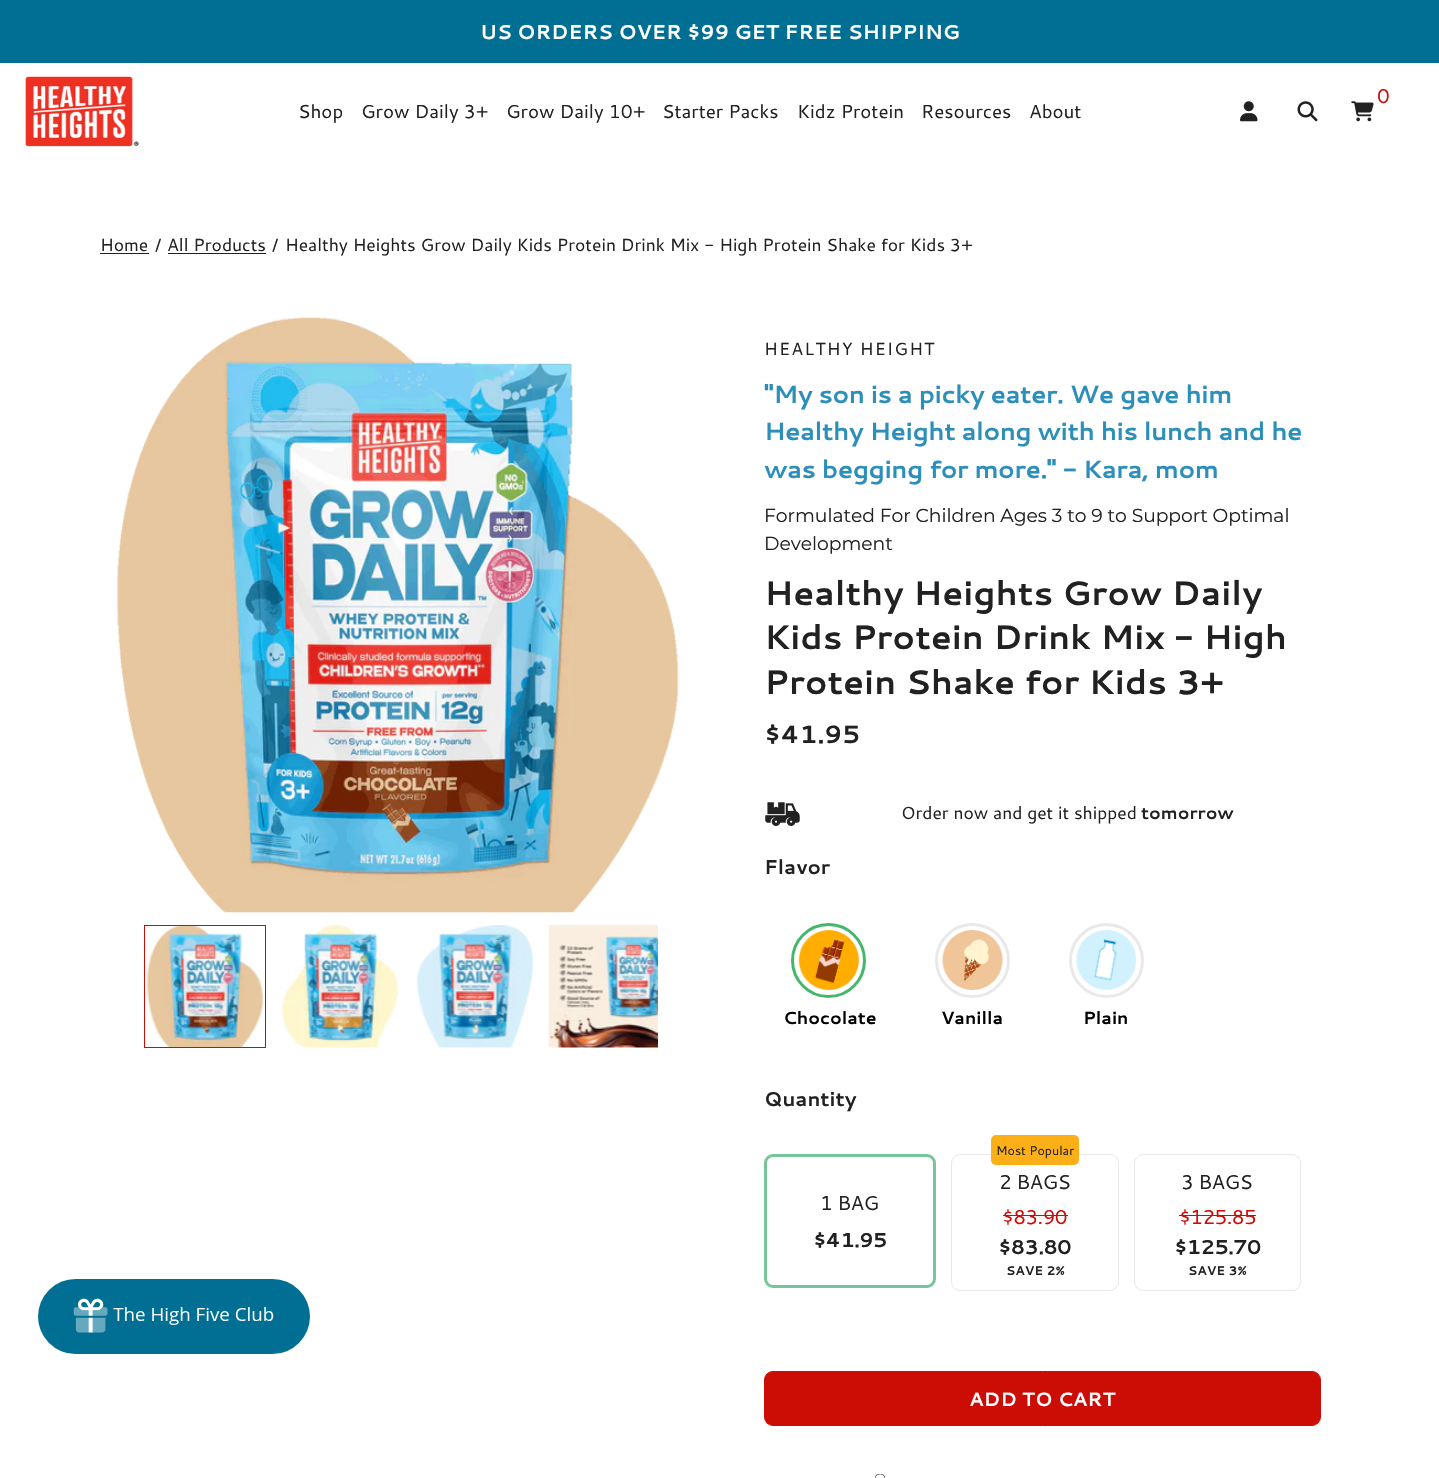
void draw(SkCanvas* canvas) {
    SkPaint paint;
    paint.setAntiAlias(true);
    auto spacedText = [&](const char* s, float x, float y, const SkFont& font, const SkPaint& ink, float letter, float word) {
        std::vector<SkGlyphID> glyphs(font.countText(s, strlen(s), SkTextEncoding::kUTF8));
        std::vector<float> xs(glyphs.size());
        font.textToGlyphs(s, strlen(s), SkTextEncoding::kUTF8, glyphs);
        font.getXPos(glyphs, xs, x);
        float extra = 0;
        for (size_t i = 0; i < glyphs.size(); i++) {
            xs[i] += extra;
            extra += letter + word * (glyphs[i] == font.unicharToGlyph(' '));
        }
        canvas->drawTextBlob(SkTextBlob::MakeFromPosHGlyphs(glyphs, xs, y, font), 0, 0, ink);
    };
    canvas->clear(0xFFFFFFFF);
    paint.setColor(0xFF006F93);
    canvas->drawRect(SkRect::MakeXYWH(0, 0, 1439, 63), paint);
    SkFont font1(fontMgr->matchFamilyStyle("Cantarell", SkFontStyle::Bold()), 20);
    font1.setSubpixel(true);
    paint.setColor(0xFFFFFFFF);
    canvas->drawString("US ORDERS OVER $99 GET FREE SHIPPING", 480, 39, font1, paint);
    canvas->drawImageRect(SkImages::DeferredFromEncodedData(SkData::MakeFromFileName("img1.png")), SkRect::MakeXYWH(25, 76, 114, 71), SkSamplingOptions());
    SkFont font2(fontMgr->matchFamilyStyle("Cantarell", SkFontStyle::Normal()), 20);
    font2.setSubpixel(true);
    paint.setColor(0xFFCC0D06);
    canvas->drawString("0", 1377, 103, font2, paint);
    canvas->drawImageRect(SkImages::DeferredFromEncodedData(SkData::MakeFromFileName("img2.png")), SkRect::MakeXYWH(1351, 101, 23, 21), SkSamplingOptions());
    canvas->drawImageRect(SkImages::DeferredFromEncodedData(SkData::MakeFromFileName("img3.png")), SkRect::MakeXYWH(1240, 101, 18, 21), SkSamplingOptions());
    canvas->drawImageRect(SkImages::DeferredFromEncodedData(SkData::MakeFromFileName("img4.png")), SkRect::MakeXYWH(1297, 101, 21, 21), SkSamplingOptions());
    SkFont font3(fontMgr->matchFamilyStyle("Cantarell", SkFontStyle::Normal()), 18.75f);
    font3.setSubpixel(true);
    paint.setColor(0xFF212121);
    canvas->drawString("Shop", 298, 118, font3, paint);
    canvas->drawString("Grow Daily 3+", 361, 118, font3, paint);
    canvas->drawString("Grow Daily 10+", 506, 118, font3, paint);
    canvas->drawString("Starter Packs", 662, 118, font3, paint);
    canvas->drawString("Kidz Protein", 797, 118, font3, paint);
    canvas->drawString("Resources", 921, 118, font3, paint);
    canvas->drawString("About", 1029, 118, font3, paint);
    SkFont font4(fontMgr->matchFamilyStyle("Cantarell", SkFontStyle::Normal()), 17.5f);
    font4.setSubpixel(true);
    canvas->drawString("Home", 100, 251, font4, paint);
    canvas->drawRect(SkRect::MakeXYWH(100, 253, 49, 1), paint);
    canvas->drawString("/", 155, 251, font4, paint);
    canvas->drawString("All Products", 167, 251, font4, paint);
    canvas->drawRect(SkRect::MakeXYWH(168, 253, 98, 1), paint);
    canvas->drawString("/", 272, 251, font4, paint);
    canvas->drawString("Healthy Heights Grow Daily Kids Protein Drink Mix - High Protein Shake for Kids 3+", 285, 251, font4, paint);
    canvas->drawImageRect(SkImages::DeferredFromEncodedData(SkData::MakeFromFileName("img5.png")), SkRect::MakeXYWH(116, 317, 563, 596), SkSamplingOptions());
    canvas->drawImageRect(SkImages::DeferredFromEncodedData(SkData::MakeFromFileName("img6.png")), SkRect::MakeXYWH(146, 926, 118, 121), SkSamplingOptions());
    paint.setStyle(SkPaint::kStroke_Style);
    paint.setStrokeWidth(1);
    paint.setColor(0xFFCC0D06);
    canvas->drawRect(SkRect::MakeXYWH(144.5f, 925.5f, 121, 122), paint);
    canvas->drawImageRect(SkImages::DeferredFromEncodedData(SkData::MakeFromFileName("img7.png")), SkRect::MakeXYWH(281, 925, 118, 123), SkSamplingOptions());
    canvas->drawImageRect(SkImages::DeferredFromEncodedData(SkData::MakeFromFileName("img8.png")), SkRect::MakeXYWH(416, 925, 118, 123), SkSamplingOptions());
    canvas->drawImageRect(SkImages::DeferredFromEncodedData(SkData::MakeFromFileName("img9.png")), SkRect::MakeXYWH(548, 925, 110, 123), SkSamplingOptions());
    paint.setStyle(SkPaint::kFill_Style);
    paint.setColor(0xFF212121);
    spacedText("HEALTHY HEIGHT", 764, 355, font4, paint, 1.25f, 0);
    SkFont font5(fontMgr->matchFamilyStyle("Cantarell", SkFontStyle::Bold()), 25);
    font5.setSubpixel(true);
    paint.setColor(0xFF2B8FBA);
    spacedText("\"My son is a picky eater. We gave him", 764, 403, font5, paint, -0.5f, 0);
    spacedText("Healthy Height along with his lunch and he", 764, 440, font5, paint, -0.5f, 0);
    spacedText("was begging for more.\" - Kara, mom", 764, 478, font5, paint, -0.5f, 0);
    SkFont font6(fontMgr->matchFamilyStyle("Montserrat", SkFontStyle(100, SkFontStyle::kNormal_Width, SkFontStyle::kUpright_Slant)), 18.75f);
    font6.setSubpixel(true);
    paint.setColor(0xFF212121);
    spacedText("Formulated For Children Ages 3 to 9 to Support Optimal", 764, 522, font6, paint, -0.05f, 0);
    spacedText("Development", 764, 550, font6, paint, -0.05f, 0);
    SkFont font7(fontMgr->matchFamilyStyle("Cantarell", SkFontStyle::Bold()), 34);
    font7.setSubpixel(true);
    canvas->drawString("Healthy Heights Grow Daily", 764, 605, font7, paint);
    canvas->drawString("Kids Protein Drink Mix - High", 764, 649, font7, paint);
    canvas->drawString("Protein Shake for Kids 3+", 764, 694, font7, paint);
    canvas->drawString("$41.95", 764, 743, font5, paint);
    canvas->drawImageRect(SkImages::DeferredFromEncodedData(SkData::MakeFromFileName("img10.png")), SkRect::MakeXYWH(765, 802, 35, 24), SkSamplingOptions());
    canvas->drawString("Order now and get it shipped", 901, 819, font4, paint);
    SkFont font8(fontMgr->matchFamilyStyle("Cantarell", SkFontStyle::Bold()), 17.5f);
    font8.setSubpixel(true);
    canvas->drawString("tomorrow", 1141, 819, font8, paint);
    canvas->drawString("Flavor", 764, 874, font1, paint);
    paint.setStyle(SkPaint::kStroke_Style);
    paint.setStrokeWidth(3);
    paint.setColor(0xFF45B76B);
    canvas->drawCircle(828.5f, 960.5f, 36, paint);
    canvas->drawImageRect(SkImages::DeferredFromEncodedData(SkData::MakeFromFileName("img11.png")), SkRect::MakeXYWH(798, 930, 61, 60), SkSamplingOptions());
    paint.setStyle(SkPaint::kFill_Style);
    paint.setColor(0xFF000000);
    canvas->drawString("Chocolate", 783, 1024, font8, paint);
    paint.setStyle(SkPaint::kStroke_Style);
    paint.setColor(0xFFE9E9E9);
    canvas->drawCircle(972.5f, 960.5f, 36, paint);
    canvas->drawImageRect(SkImages::DeferredFromEncodedData(SkData::MakeFromFileName("img12.png")), SkRect::MakeXYWH(942, 930, 61, 60), SkSamplingOptions());
    paint.setStyle(SkPaint::kFill_Style);
    paint.setColor(0xFF000000);
    canvas->drawString("Vanilla", 941, 1024, font8, paint);
    paint.setStyle(SkPaint::kStroke_Style);
    paint.setColor(0xFFE9E9E9);
    canvas->drawCircle(1106.5f, 960.5f, 36, paint);
    canvas->drawImageRect(SkImages::DeferredFromEncodedData(SkData::MakeFromFileName("img13.png")), SkRect::MakeXYWH(1076, 930, 61, 60), SkSamplingOptions());
    paint.setStyle(SkPaint::kFill_Style);
    paint.setColor(0xFF000000);
    canvas->drawString("Plain", 1083, 1024, font8, paint);
    paint.setColor(0xFF212121);
    canvas->drawString("Quantity", 764, 1106, font1, paint);
    paint.setStyle(SkPaint::kStroke_Style);
    paint.setColor(0xFF77C598);
    canvas->drawRoundRect(SkRect::MakeXYWH(765.5f, 1155.5f, 169, 131), 7.5f, 7.5f, paint);
    paint.setStyle(SkPaint::kFill_Style);
    paint.setColor(0xFF212121);
    spacedText("1 BAG", 820, 1210, font2, paint, -0.5f, 0);
    spacedText("$41.95", 813, 1247, font1, paint, -0.5f, 0);
    paint.setStyle(SkPaint::kStroke_Style);
    paint.setStrokeWidth(1);
    paint.setColor(0xFFE9E9E9);
    canvas->drawRoundRect(SkRect::MakeXYWH(951.5f, 1154.5f, 167, 136), 8.5f, 8.5f, paint);
    paint.setStyle(SkPaint::kFill_Style);
    paint.setColor(0xFFFCAF17);
    canvas->drawRoundRect(SkRect::MakeXYWH(991, 1135, 88, 30), 5, 5, paint);
    SkFont font9(fontMgr->matchFamilyStyle("Cantarell", SkFontStyle::Normal()), 12.5f);
    font9.setSubpixel(true);
    paint.setColor(0xFF212121);
    canvas->drawString("Most Popular", 996, 1155, font9, paint);
    spacedText("2 BAGS", 999, 1189, font2, paint, -0.5f, 0);
    paint.setColor(0xFFCC0D06);
    spacedText("$83.90", 1002, 1224, font2, paint, -0.5f, 0);
    canvas->drawRect(SkRect::MakeXYWH(1003, 1215, 65, 1), paint);
    paint.setColor(0xFF212121);
    spacedText("$83.80", 998, 1254, font1, paint, -0.5f, 0);
    SkFont font10(fontMgr->matchFamilyStyle("Cantarell", SkFontStyle::Bold()), 12.5f);
    font10.setSubpixel(true);
    canvas->drawString("SAVE 2%", 1006, 1275, font10, paint);
    paint.setStyle(SkPaint::kStroke_Style);
    paint.setColor(0xFFE9E9E9);
    canvas->drawRoundRect(SkRect::MakeXYWH(1134.5f, 1154.5f, 166, 136), 8.5f, 8.5f, paint);
    paint.setStyle(SkPaint::kFill_Style);
    paint.setColor(0xFF212121);
    spacedText("3 BAGS", 1181, 1189, font2, paint, -0.5f, 0);
    paint.setColor(0xFFCC0D06);
    spacedText("$125.85", 1179, 1224, font2, paint, -0.5f, 0);
    canvas->drawRect(SkRect::MakeXYWH(1179, 1215, 77, 1), paint);
    paint.setColor(0xFF212121);
    spacedText("$125.70", 1174, 1254, font1, paint, -0.5f, 0);
    canvas->drawString("SAVE 3%", 1188, 1275, font10, paint);
    paint.setColor(0xFFCC0D06);
    canvas->drawRoundRect(SkRect::MakeXYWH(764.5f, 1371.5f, 556, 54), 8.5f, 8.5f, paint);
    paint.setStyle(SkPaint::kStroke_Style);
    canvas->drawRoundRect(SkRect::MakeXYWH(764.5f, 1371.5f, 556, 54), 8.5f, 8.5f, paint);
    SkFont font11(fontMgr->matchFamilyStyle("Cantarell", SkFontStyle::Bold()), 19.25f);
    font11.setSubpixel(true);
    paint.setStyle(SkPaint::kFill_Style);
    paint.setColor(0xFFFFFFFF);
    canvas->drawString("ADD TO CART", 969, 1406, font11, paint);
    canvas->drawImageRect(SkImages::DeferredFromEncodedData(SkData::MakeFromFileName("img14.png")), SkRect::MakeXYWH(875, 1474, 10, 4), SkSamplingOptions());
    paint.setColor(0xFF006F93);
    canvas->drawRoundRect(SkRect::MakeXYWH(38, 1279, 272, 75), 37.5f, 37.5f, paint);
    canvas->drawImageRect(SkImages::DeferredFromEncodedData(SkData::MakeFromFileName("img15.png")), SkRect::MakeXYWH(73, 1298, 201, 35), SkSamplingOptions());
}
